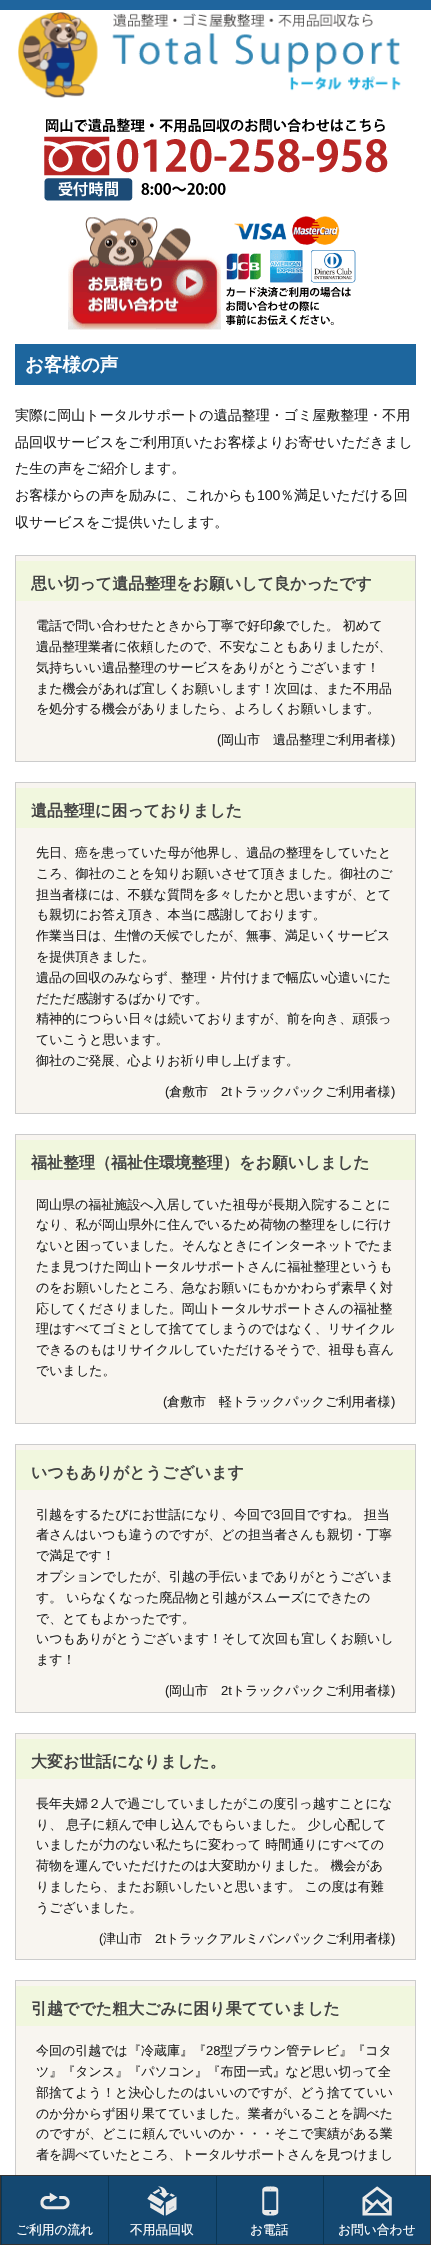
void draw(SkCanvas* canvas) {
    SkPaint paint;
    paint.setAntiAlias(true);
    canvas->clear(0xFFFFFFFF);
    paint.setColor(0xFF1F659E);
    canvas->drawRect(SkRect::MakeXYWH(0, 0, 431, 10), paint);
    canvas->drawImageRect(SkImages::DeferredFromEncodedData(SkData::MakeFromFileName("img1.png")), SkRect::MakeXYWH(18, 12, 383, 86), SkSamplingOptions());
    canvas->drawImageRect(SkImages::DeferredFromEncodedData(SkData::MakeFromFileName("img2.png")), SkRect::MakeXYWH(44, 118, 344, 83), SkSamplingOptions());
    canvas->drawImageRect(SkImages::DeferredFromEncodedData(SkData::MakeFromFileName("img3.png")), SkRect::MakeXYWH(68, 216, 288, 114), SkSamplingOptions());
    paint.setColor(0xFF1D669E);
    canvas->drawRect(SkRect::MakeXYWH(15, 344, 401, 41), paint);
    SkFont font1(fontMgr->matchFamilyStyle("WenQuanYi Zen Hei", SkFontStyle::Bold()), 18.5f);
    font1.setSubpixel(true);
    paint.setColor(0xFFFFFFFF);
    canvas->drawString("お客様の声", 25, 371, font1, paint);
    SkFont font2(fontMgr->matchFamilyStyle("WenQuanYi Zen Hei", SkFontStyle(500, SkFontStyle::kNormal_Width, SkFontStyle::kUpright_Slant)), 14);
    font2.setSubpixel(true);
    paint.setColor(0xFF222222);
    canvas->drawString("実際に岡山トータルサポートの遺品整理・ゴミ屋敷整理・不用", 15, 420, font2, paint);
    canvas->drawString("品回収サービスをご利用頂いたお客様よりお寄せいただきまし", 15, 447, font2, paint);
    canvas->drawString("た生の声をご紹介します。", 15, 473, font2, paint);
    canvas->drawString("お客様からの声を励みに、これからも", 15, 500, font2, paint);
    SkFont font3(fontMgr->matchFamilyStyle("Liberation Sans", SkFontStyle::Normal()), 14);
    font3.setSubpixel(true);
    canvas->drawString("100", 257, 500, font3, paint);
    canvas->drawString("％満足いただける回", 280, 500, font2, paint);
    canvas->drawString("収サービスをご提供いたします。", 15, 527, font2, paint);
    paint.setColor(0xFFF8F5F0);
    canvas->drawRect(SkRect::MakeXYWH(15.5f, 555.5f, 400, 206), paint);
    paint.setStyle(SkPaint::kStroke_Style);
    paint.setStrokeWidth(1);
    paint.setColor(0xFFCCCCCC);
    canvas->drawRect(SkRect::MakeXYWH(15.5f, 555.5f, 400, 206), paint);
    paint.setStyle(SkPaint::kFill_Style);
    paint.setColor(0xFFF1F7DE);
    canvas->drawRect(SkRect::MakeXYWH(16, 561, 399, 40), paint);
    SkFont font4(fontMgr->matchFamilyStyle("WenQuanYi Zen Hei", SkFontStyle::Bold()), 16);
    font4.setSubpixel(true);
    paint.setColor(0xFF444444);
    canvas->drawString("思い切って遺品整理をお願いして良かったです", 31, 589, font4, paint);
    SkFont font5(fontMgr->matchFamilyStyle("WenQuanYi Zen Hei", SkFontStyle(500, SkFontStyle::kNormal_Width, SkFontStyle::kUpright_Slant)), 13);
    font5.setSubpixel(true);
    paint.setColor(0xFF222222);
    canvas->drawString("電話で問い合わせたときから丁寧で好印象でした。 初めて", 36, 630, font5, paint);
    canvas->drawString("遺品整理業者に依頼したので、不安なこともありましたが、", 36, 651, font5, paint);
    canvas->drawString("気持ちいい遺品整理のサービスをありがとうございます！", 36, 672, font5, paint);
    canvas->drawString("また機会があれば宜しくお願いします！次回は、また不用品", 36, 693, font5, paint);
    canvas->drawString("を処分する機会がありましたら、よろしくお願いします。", 36, 713, font5, paint);
    SkFont font6(fontMgr->matchFamilyStyle("Liberation Sans", SkFontStyle::Normal()), 13);
    font6.setSubpixel(true);
    canvas->drawString("(", 217, 744, font6, paint);
    canvas->drawString("岡山市　遺品整理ご利用者様", 221, 744, font5, paint);
    canvas->drawString(")", 391, 744, font6, paint);
    paint.setColor(0xFFF8F5F0);
    canvas->drawRect(SkRect::MakeXYWH(15.5f, 782.5f, 400, 331), paint);
    paint.setStyle(SkPaint::kStroke_Style);
    paint.setColor(0xFFCCCCCC);
    canvas->drawRect(SkRect::MakeXYWH(15.5f, 782.5f, 400, 331), paint);
    paint.setStyle(SkPaint::kFill_Style);
    paint.setColor(0xFFF1F7DE);
    canvas->drawRect(SkRect::MakeXYWH(16, 788, 399, 40), paint);
    paint.setColor(0xFF444444);
    canvas->drawString("遺品整理に困っておりました", 31, 816, font4, paint);
    paint.setColor(0xFF222222);
    canvas->drawString("先日、癌を患っていた母が他界し、遺品の整理をしていたと", 36, 857, font5, paint);
    canvas->drawString("ころ、御社のことを知りお願いさせて頂きました。御社のご", 36, 878, font5, paint);
    canvas->drawString("担当者様には、不躾な質問を多々したかと思いますが、とて", 36, 899, font5, paint);
    canvas->drawString("も親切にお答え頂き、本当に感謝しております。", 36, 919, font5, paint);
    canvas->drawString("作業当日は、生憎の天候でしたが、無事、満足いくサービス", 36, 940, font5, paint);
    canvas->drawString("を提供頂きました。", 36, 961, font5, paint);
    canvas->drawString("遺品の回収のみならず、整理・片付けまで幅広い心遣いにた", 36, 982, font5, paint);
    canvas->drawString("だただ感謝するばかりです。", 36, 1003, font5, paint);
    canvas->drawString("精神的につらい日々は続いておりますが、前を向き、頑張っ", 36, 1023, font5, paint);
    canvas->drawString("ていこうと思います。", 36, 1044, font5, paint);
    canvas->drawString("御社のご発展、心よりお祈り申し上げます。", 36, 1065, font5, paint);
    canvas->drawString("(", 165, 1096, font6, paint);
    canvas->drawString("倉敷市", 169, 1096, font5, paint);
    canvas->drawString("2t", 221, 1096, font6, paint);
    canvas->drawString("トラックパックご利用者様", 232, 1096, font5, paint);
    canvas->drawString(")", 391, 1096, font6, paint);
    paint.setColor(0xFFF8F5F0);
    canvas->drawRect(SkRect::MakeXYWH(15.5f, 1134.5f, 400, 289), paint);
    paint.setStyle(SkPaint::kStroke_Style);
    paint.setColor(0xFFCCCCCC);
    canvas->drawRect(SkRect::MakeXYWH(15.5f, 1134.5f, 400, 289), paint);
    paint.setStyle(SkPaint::kFill_Style);
    paint.setColor(0xFFF1F7DE);
    canvas->drawRect(SkRect::MakeXYWH(16, 1140, 399, 40), paint);
    paint.setColor(0xFF444444);
    canvas->drawString("福祉整理（福祉住環境整理）をお願いしました", 31, 1168, font4, paint);
    paint.setColor(0xFF222222);
    canvas->drawString("岡山県の福祉施設へ入居していた祖母が長期入院することに", 36, 1209, font5, paint);
    canvas->drawString("なり、私が岡山県外に住んでいるため荷物の整理をしに行け", 36, 1229, font5, paint);
    canvas->drawString("ないと困っていました。そんなときにインターネットでたま", 36, 1250, font5, paint);
    canvas->drawString("たま見つけた岡山トータルサポートさんに福祉整理というも", 36, 1271, font5, paint);
    canvas->drawString("のをお願いしたところ、急なお願いにもかかわらず素早く対", 36, 1292, font5, paint);
    canvas->drawString("応してくださりました。岡山トータルサポートさんの福祉整", 36, 1313, font5, paint);
    canvas->drawString("理はすべてゴミとして捨ててしまうのではなく、リサイクル", 36, 1333, font5, paint);
    canvas->drawString("できるのもはリサイクルしていただけるそうで、祖母も喜ん", 36, 1354, font5, paint);
    canvas->drawString("でいました。", 36, 1375, font5, paint);
    canvas->drawString("(", 163, 1406, font6, paint);
    canvas->drawString("倉敷市　軽トラックパックご利用者様", 167, 1406, font5, paint);
    canvas->drawString(")", 391, 1406, font6, paint);
    paint.setColor(0xFFF8F5F0);
    canvas->drawRect(SkRect::MakeXYWH(15.5f, 1444.5f, 400, 268), paint);
    paint.setStyle(SkPaint::kStroke_Style);
    paint.setColor(0xFFCCCCCC);
    canvas->drawRect(SkRect::MakeXYWH(15.5f, 1444.5f, 400, 268), paint);
    paint.setStyle(SkPaint::kFill_Style);
    paint.setColor(0xFFF1F7DE);
    canvas->drawRect(SkRect::MakeXYWH(16, 1450, 399, 40), paint);
    paint.setColor(0xFF444444);
    canvas->drawString("いつもありがとうございます", 31, 1478, font4, paint);
    paint.setColor(0xFF222222);
    canvas->drawString("引越をするたびにお世話になり、今回で", 36, 1519, font5, paint);
    canvas->drawString("3", 273, 1519, font6, paint);
    canvas->drawString("回目ですね。 担当", 281, 1519, font5, paint);
    canvas->drawString("者さんはいつも違うのですが、どの担当者さんも親切・丁寧", 36, 1539, font5, paint);
    canvas->drawString("で満足です！", 36, 1560, font5, paint);
    canvas->drawString("オプションでしたが、引越の手伝いまでありがとうございま", 36, 1581, font5, paint);
    canvas->drawString("す。 いらなくなった廃品物と引越がスムーズにできたの", 36, 1602, font5, paint);
    canvas->drawString("で、とてもよかったです。", 36, 1623, font5, paint);
    canvas->drawString("いつもありがとうございます！そして次回も宜しくお願いし", 36, 1643, font5, paint);
    canvas->drawString("ます！", 36, 1664, font5, paint);
    canvas->drawString("(", 165, 1695, font6, paint);
    canvas->drawString("岡山市", 169, 1695, font5, paint);
    canvas->drawString("2t", 221, 1695, font6, paint);
    canvas->drawString("トラックパックご利用者様", 232, 1695, font5, paint);
    canvas->drawString(")", 391, 1695, font6, paint);
    paint.setColor(0xFFF8F5F0);
    canvas->drawRect(SkRect::MakeXYWH(15.5f, 1733.5f, 400, 226), paint);
    paint.setStyle(SkPaint::kStroke_Style);
    paint.setColor(0xFFCCCCCC);
    canvas->drawRect(SkRect::MakeXYWH(15.5f, 1733.5f, 400, 226), paint);
    paint.setStyle(SkPaint::kFill_Style);
    paint.setColor(0xFFF1F7DE);
    canvas->drawRect(SkRect::MakeXYWH(16, 1739, 399, 40), paint);
    paint.setColor(0xFF444444);
    canvas->drawString("大変お世話になりました。", 31, 1767, font4, paint);
    paint.setColor(0xFF222222);
    canvas->drawString("長年夫婦２人で過ごしていましたがこの度引っ越すことにな", 36, 1808, font5, paint);
    canvas->drawString("り、 息子に頼んで申し込んでもらいました。 少し心配して", 36, 1829, font5, paint);
    canvas->drawString("いましたが力のない私たちに変わって 時間通りにすべての", 36, 1849, font5, paint);
    canvas->drawString("荷物を運んでいただけたのは大変助かりました。 機会があ", 36, 1870, font5, paint);
    canvas->drawString("りましたら、またお願いしたいと思います。 この度は有難", 36, 1891, font5, paint);
    canvas->drawString("うございました。", 36, 1912, font5, paint);
    canvas->drawString("(", 99, 1943, font6, paint);
    canvas->drawString("津山市", 103, 1943, font5, paint);
    canvas->drawString("2t", 155, 1943, font6, paint);
    canvas->drawString("トラックアルミバンパックご利用者様", 166, 1943, font5, paint);
    canvas->drawString(")", 391, 1943, font6, paint);
    paint.setColor(0xFFF8F5F0);
    canvas->drawRect(SkRect::MakeXYWH(16, 1981, 399, 194), paint);
    paint.setStyle(SkPaint::kStroke_Style);
    paint.setColor(0xFFCCCCCC);
    canvas->drawRect(SkRect::MakeXYWH(15.5f, 1980.5f, 400, 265), paint);
    paint.setStyle(SkPaint::kFill_Style);
    paint.setColor(0xFFF1F7DE);
    canvas->drawRect(SkRect::MakeXYWH(16, 1986, 399, 40), paint);
    paint.setColor(0xFF444444);
    canvas->drawString("引越ででた粗大ごみに困り果てていました", 31, 2014, font4, paint);
    paint.setColor(0xFF222222);
    canvas->drawString("今回の引越では『冷蔵庫』『", 36, 2055, font5, paint);
    canvas->drawString("28", 206, 2055, font6, paint);
    canvas->drawString("型ブラウン管テレビ』『コタ", 220, 2055, font5, paint);
    canvas->drawString("ツ』『タンス』『パソコン』『布団一式』など思い切って全", 36, 2076, font5, paint);
    canvas->drawString("部捨てよう！と決心したのはいいのですが、どう捨てていい", 36, 2097, font5, paint);
    canvas->drawString("のか分からず困り果てていました。業者がいることを調べた", 36, 2118, font5, paint);
    canvas->drawString("のですが、どこに頼んでいいのか・・・そこで実績がある業", 36, 2138, font5, paint);
    canvas->drawString("者を調べていたところ、トータルサポートさんを見つけまし", 36, 2159, font5, paint);
    paint.setColor(0xFF144871);
    canvas->drawRect(SkRect::MakeXYWH(2, 2176, 428, 68), paint);
    paint.setStyle(SkPaint::kStroke_Style);
    paint.setColor(0xFF333333);
    canvas->drawRect(SkRect::MakeXYWH(0.5f, 2175.5f, 430, 69), paint);
    paint.setStyle(SkPaint::kFill_Style);
    paint.setColor(0xFF0A3756);
    canvas->drawRect(SkRect::MakeXYWH(1, 2176, 1, 69), paint);
    canvas->drawImageRect(SkImages::DeferredFromEncodedData(SkData::MakeFromFileName("img4.png")), SkRect::MakeXYWH(40, 2192, 30, 18), SkSamplingOptions());
    SkFont font7(fontMgr->matchFamilyStyle("WenQuanYi Zen Hei", SkFontStyle(500, SkFontStyle::kNormal_Width, SkFontStyle::kUpright_Slant)), 12.75f);
    font7.setSubpixel(true);
    paint.setColor(0xFFFFFFFF);
    canvas->drawString("ご利用の流れ", 16, 2234, font7, paint);
    paint.setColor(0xFF0A3756);
    canvas->drawRect(SkRect::MakeXYWH(108, 2176, 1, 69), paint);
    canvas->drawImageRect(SkImages::DeferredFromEncodedData(SkData::MakeFromFileName("img5.png")), SkRect::MakeXYWH(147, 2186, 30, 30), SkSamplingOptions());
    paint.setColor(0xFFFFFFFF);
    canvas->drawString("不用品回収", 130, 2234, font7, paint);
    paint.setColor(0xFF0A3756);
    canvas->drawRect(SkRect::MakeXYWH(216, 2176, 1, 69), paint);
    canvas->drawImageRect(SkImages::DeferredFromEncodedData(SkData::MakeFromFileName("img6.png")), SkRect::MakeXYWH(262, 2186, 17, 30), SkSamplingOptions());
    paint.setColor(0xFFFFFFFF);
    canvas->drawString("お電話", 250, 2234, font7, paint);
    paint.setColor(0xFF0A3756);
    canvas->drawRect(SkRect::MakeXYWH(323, 2176, 1, 69), paint);
    canvas->drawImageRect(SkImages::DeferredFromEncodedData(SkData::MakeFromFileName("img7.png")), SkRect::MakeXYWH(362, 2186, 30, 30), SkSamplingOptions());
    paint.setColor(0xFFFFFFFF);
    canvas->drawString("お問い合わせ", 338, 2234, font7, paint);
}
